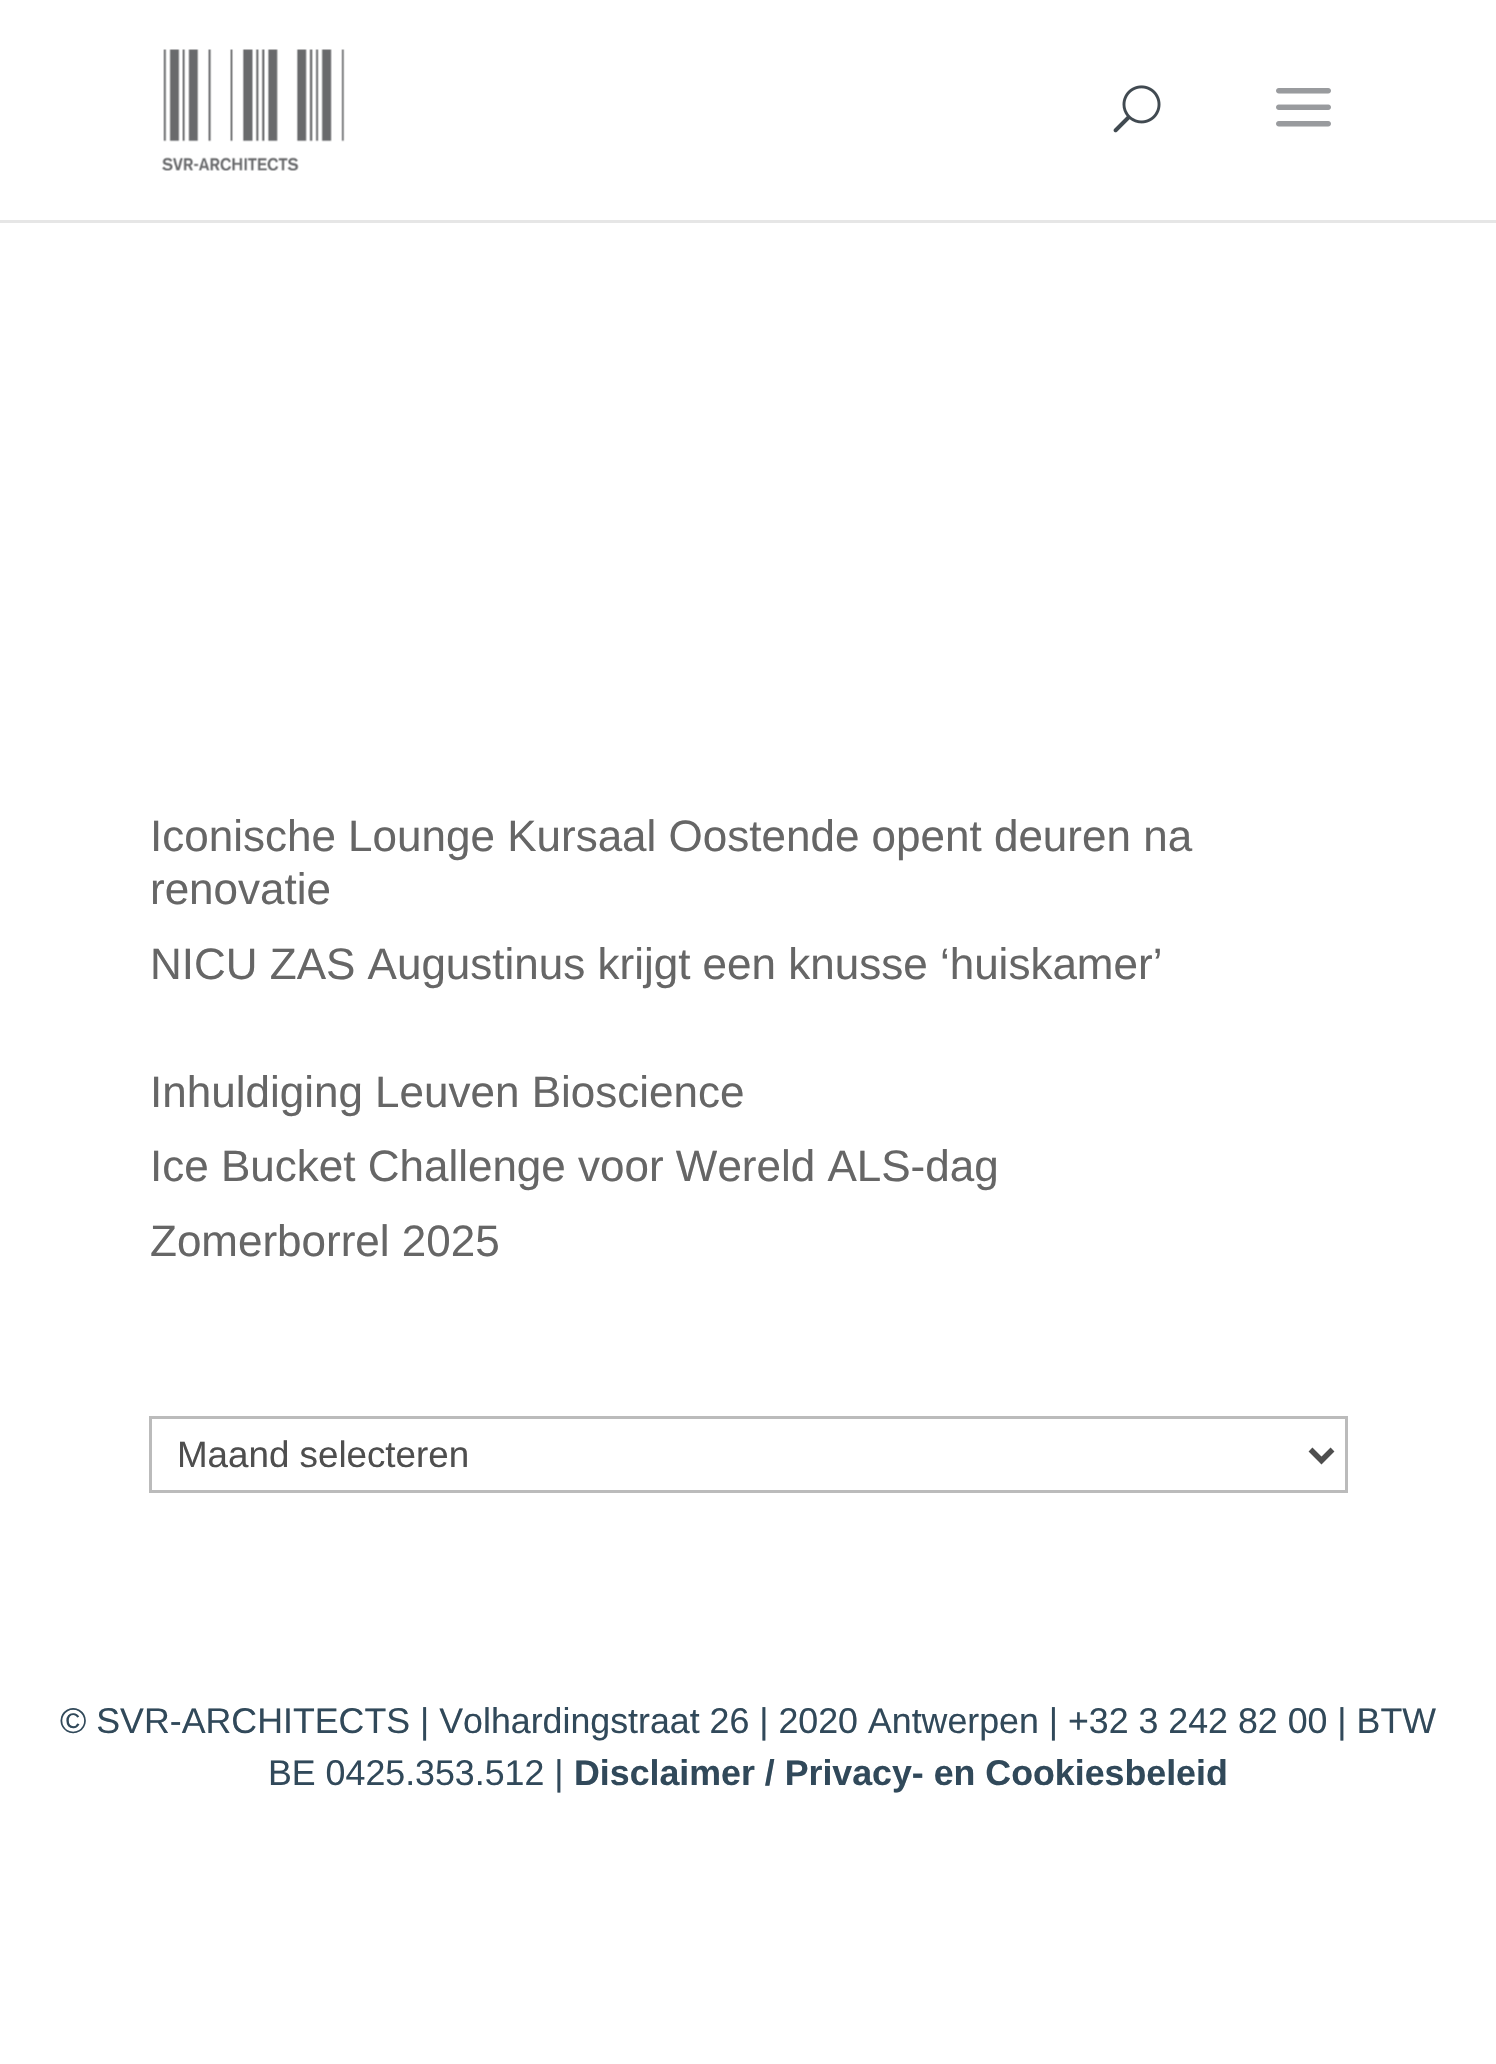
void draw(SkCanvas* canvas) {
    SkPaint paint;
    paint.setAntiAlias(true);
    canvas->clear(0xFFFFFFFF);
    paint.setColor(0xFFE6E6E6);
    canvas->drawRect(SkRect::MakeXYWH(0, 220, 1496, 3), paint);
    canvas->drawImageRect(SkImages::DeferredFromEncodedData(SkData::MakeFromFileName("img1.png")), SkRect::MakeXYWH(161, 49, 184, 122), SkSamplingOptions());
    canvas->drawImageRect(SkImages::DeferredFromEncodedData(SkData::MakeFromFileName("img2.png")), SkRect::MakeXYWH(1113, 85, 48, 48), SkSamplingOptions());
    canvas->drawImageRect(SkImages::DeferredFromEncodedData(SkData::MakeFromFileName("img3.png")), SkRect::MakeXYWH(1276, 88, 55, 39), SkSamplingOptions());
    SkFont font1(fontMgr->matchFamilyStyle("Liberation Sans", SkFontStyle::Normal()), 44);
    font1.setSubpixel(true);
    paint.setColor(0xFF666666);
    canvas->drawString("Iconische Lounge Kursaal Oostende opent deuren na", 150, 851, font1, paint);
    canvas->drawString("renovatie", 150, 904, font1, paint);
    canvas->drawString("NICU ZAS Augustinus krijgt een knusse ‘huiskamer’", 150, 979, font1, paint);
    canvas->drawString("Inhuldiging Leuven Bioscience", 150, 1107, font1, paint);
    canvas->drawString("Ice Bucket Challenge voor Wereld ALS-dag", 150, 1181, font1, paint);
    canvas->drawString("Zomerborrel 2025", 150, 1256, font1, paint);
    paint.setStyle(SkPaint::kStroke_Style);
    paint.setStrokeWidth(3);
    paint.setColor(0xFFBBBBBB);
    canvas->drawRect(SkRect::MakeXYWH(150.5f, 1417.5f, 1196, 74), paint);
    paint.setStrokeWidth(5.5f);
    paint.setColor(0xFF4E4E4E);
    canvas->drawPath(SkPathBuilder().moveTo(1310.5f, 1449.5f).lineTo(1321.5f, 1460.5f).lineTo(1332.5f, 1449.5f).detach(), paint);
    SkFont font2(fontMgr->matchFamilyStyle("Liberation Sans", SkFontStyle::Normal()), 36.75f);
    font2.setSubpixel(true);
    paint.setStyle(SkPaint::kFill_Style);
    canvas->drawString("Maand selecteren", 177, 1467, font2, paint);
    SkFont font3(fontMgr->matchFamilyStyle("Liberation Sans", SkFontStyle::Normal()), 35.75f);
    font3.setSubpixel(true);
    paint.setColor(0xFF31495A);
    canvas->drawString("© SVR-ARCHITECTS | Volhardingstraat 26 | 2020 Antwerpen | +32 3 242 82 00 | BTW", 60, 1733, font3, paint);
    canvas->drawString("BE 0425.353.512 |", 268, 1785, font3, paint);
    SkFont font4(fontMgr->matchFamilyStyle("Liberation Sans", SkFontStyle::Bold()), 35.75f);
    font4.setSubpixel(true);
    canvas->drawString("Disclaimer / Privacy- en Cookiesbeleid", 574, 1785, font4, paint);
}
